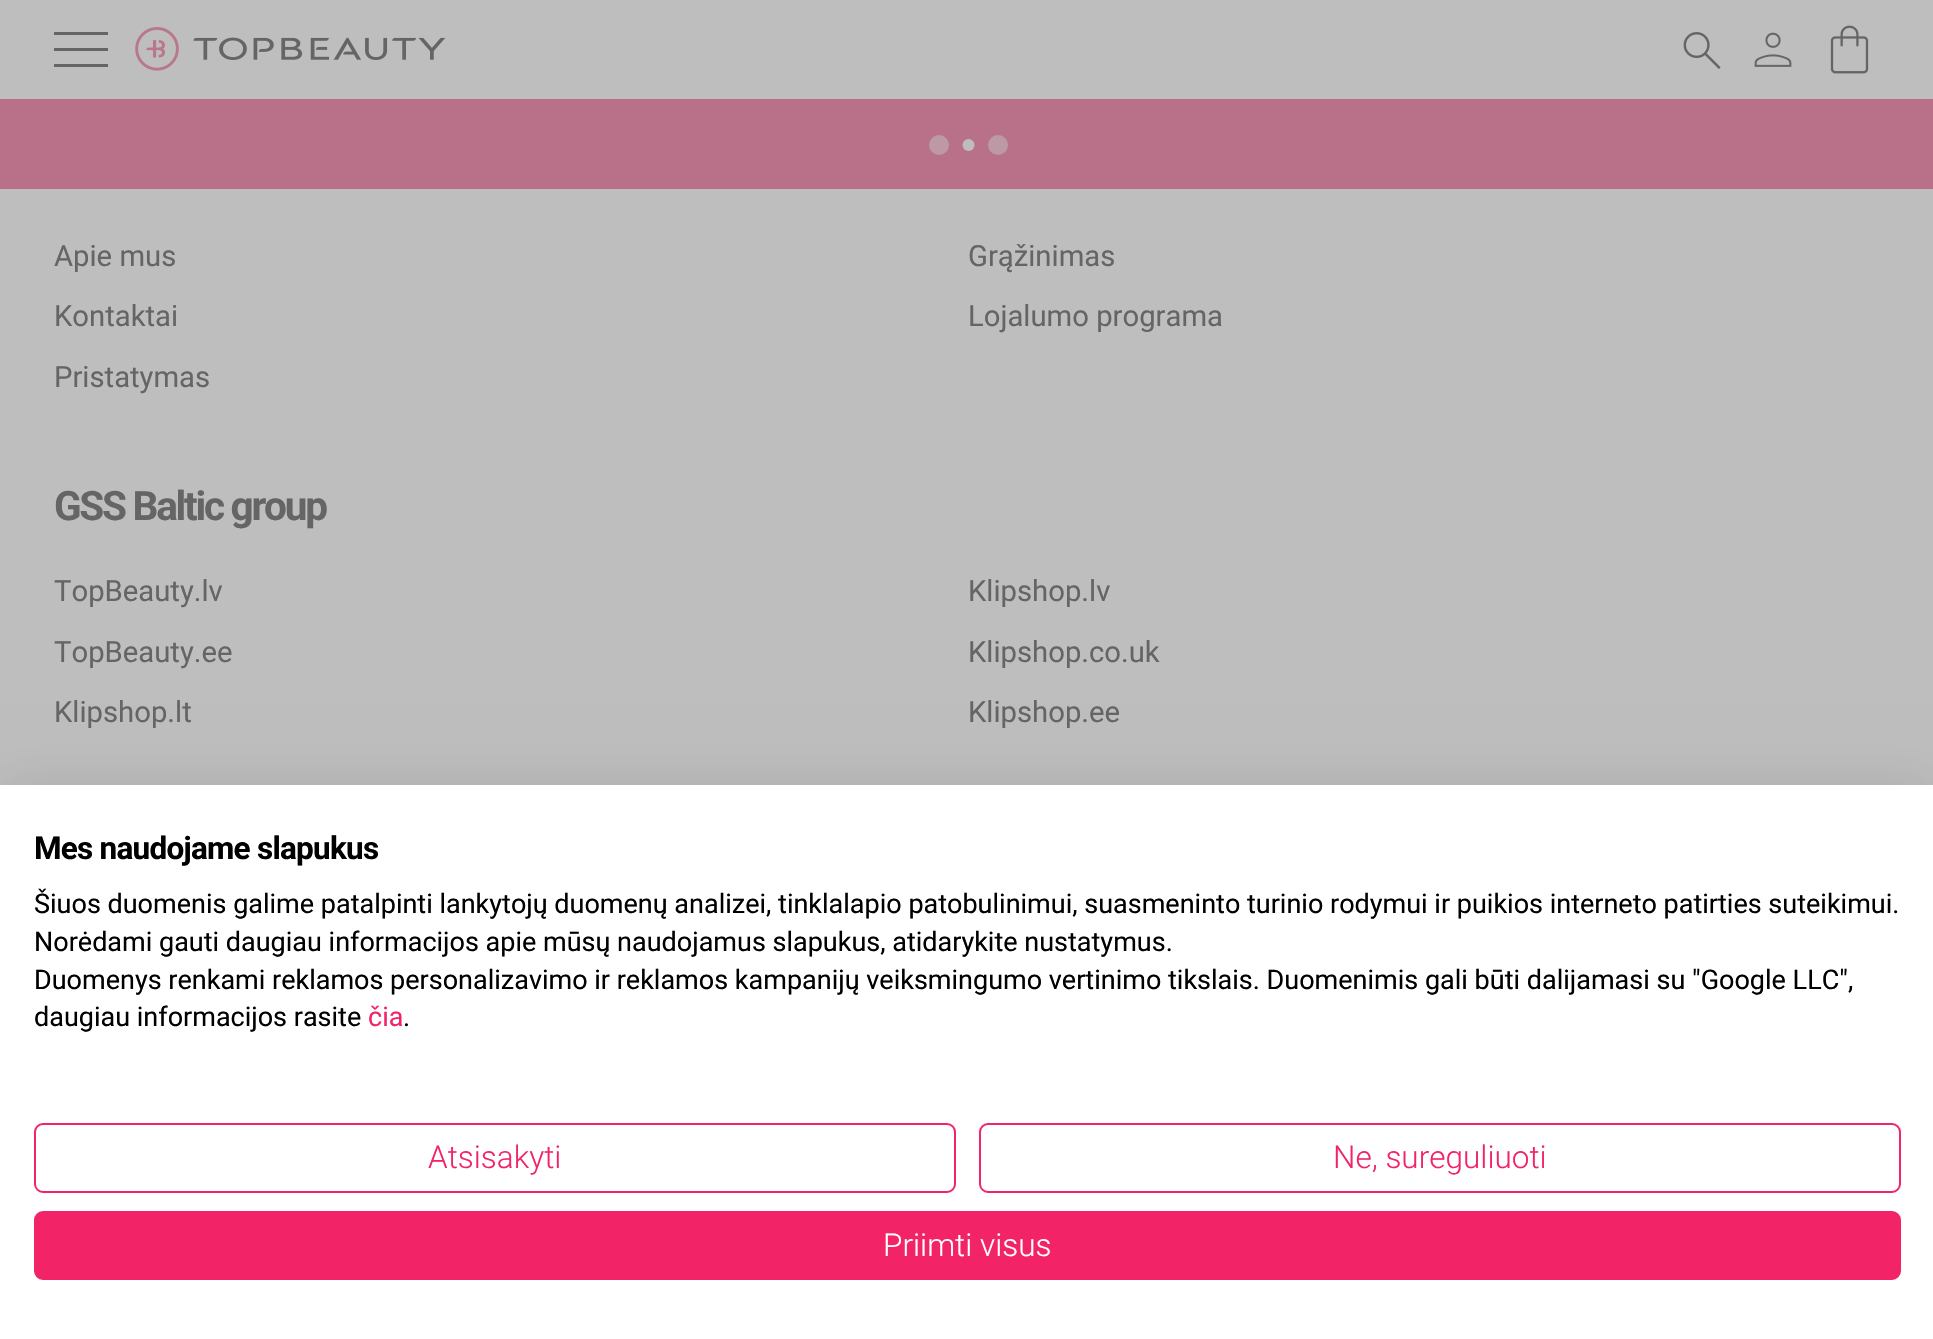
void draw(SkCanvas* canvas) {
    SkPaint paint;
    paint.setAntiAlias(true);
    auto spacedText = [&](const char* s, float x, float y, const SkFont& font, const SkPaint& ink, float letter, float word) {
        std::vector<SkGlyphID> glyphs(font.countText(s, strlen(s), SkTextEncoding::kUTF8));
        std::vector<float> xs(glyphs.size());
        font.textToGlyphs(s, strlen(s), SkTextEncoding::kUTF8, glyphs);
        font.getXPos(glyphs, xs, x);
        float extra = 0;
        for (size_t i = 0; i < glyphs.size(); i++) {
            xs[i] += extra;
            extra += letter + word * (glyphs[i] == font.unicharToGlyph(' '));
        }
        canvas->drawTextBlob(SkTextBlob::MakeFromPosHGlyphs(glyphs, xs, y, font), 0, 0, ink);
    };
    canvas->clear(0xFFBEBEBE);
    paint.setColor(0xFF656565);
    canvas->drawPath(SkPathBuilder().moveTo(54, 67).lineTo(54, 64).lineTo(108, 64).lineTo(108, 67).close().moveTo(54, 51).lineTo(54, 48).lineTo(108, 48).lineTo(108, 51).close().moveTo(54, 35).lineTo(54, 32).lineTo(108, 32).lineTo(108, 35).close().detach(), paint);
    canvas->drawImageRect(SkImages::DeferredFromEncodedData(SkData::MakeFromFileName("img1.png")), SkRect::MakeXYWH(135, 27, 311, 44), SkSamplingOptions());
    canvas->drawImageRect(SkImages::DeferredFromEncodedData(SkData::MakeFromFileName("img2.png")), SkRect::MakeXYWH(1683, 32, 38, 37), SkSamplingOptions());
    canvas->drawImageRect(SkImages::DeferredFromEncodedData(SkData::MakeFromFileName("img3.png")), SkRect::MakeXYWH(1754, 32, 38, 35), SkSamplingOptions());
    canvas->drawImageRect(SkImages::DeferredFromEncodedData(SkData::MakeFromFileName("img4.png")), SkRect::MakeXYWH(1830, 25, 39, 49), SkSamplingOptions());
    paint.setColor(0xFFB97189);
    canvas->drawRect(SkRect::MakeXYWH(0, 99, 1933, 90), paint);
    paint.setColor(0xFFBC99A4);
    canvas->drawCircle(939, 145, 10, paint);
    paint.setColor(0xFFBEBCBD);
    canvas->drawCircle(968.5f, 145, 6, paint);
    paint.setColor(0xFFBC99A4);
    canvas->drawCircle(998, 145, 10, paint);
    SkFont font1(fontMgr->matchFamilyStyle("Roboto", SkFontStyle::Normal()), 29.25f);
    font1.setSubpixel(true);
    paint.setColor(0xFF656565);
    canvas->drawString("Apie mus", 54, 266, font1, paint);
    canvas->drawString("Kontaktai", 54, 326, font1, paint);
    canvas->drawString("Pristatymas", 54, 387, font1, paint);
    canvas->drawString("Grąžinimas", 968, 266, font1, paint);
    canvas->drawString("Lojalumo programa", 968, 326, font1, paint);
    SkFont font2(fontMgr->matchFamilyStyle("Roboto", SkFontStyle::Bold()), 40.5f);
    font2.setSubpixel(true);
    spacedText("GSS Baltic group", 54, 520, font2, paint, -2.25f, 0);
    canvas->drawString("TopBeauty.lv", 54, 601, font1, paint);
    canvas->drawString("TopBeauty.ee", 54, 662, font1, paint);
    canvas->drawString("Klipshop.lt", 54, 722, font1, paint);
    canvas->drawString("Klipshop.lv", 968, 601, font1, paint);
    canvas->drawString("Klipshop.co.uk", 968, 662, font1, paint);
    canvas->drawString("Klipshop.ee", 968, 722, font1, paint);
    paint.setColor(0x1A000000);
    paint.setMaskFilter(SkMaskFilter::MakeBlur(kNormal_SkBlurStyle, 27));
    canvas->drawRect(SkRect::MakeXYWH(0, 785, 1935, 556), paint);
    paint.setMaskFilter(nullptr);
    paint.setColor(0xFFFFFFFF);
    canvas->drawRect(SkRect::MakeXYWH(0, 785, 1933, 554), paint);
    SkFont font3(fontMgr->matchFamilyStyle("Roboto", SkFontStyle::Bold()), 31.5f);
    font3.setSubpixel(true);
    paint.setColor(0xFF000000);
    spacedText("Mes naudojame slapukus", 34, 859, font3, paint, -0.75f, 0);
    SkFont font4(fontMgr->matchFamilyStyle("Roboto", SkFontStyle::Normal()), 27);
    font4.setSubpixel(true);
    canvas->drawString("Šiuos duomenis galime patalpinti lankytojų duomenų analizei, tinklalapio patobulinimui, suasmeninto turinio rodymui ir puikios interneto patirties suteikimui.", 34, 913, font4, paint);
    canvas->drawString("Norėdami gauti daugiau informacijos apie mūsų naudojamus slapukus, atidarykite nustatymus.", 34, 951, font4, paint);
    canvas->drawString("Duomenys renkami reklamos personalizavimo ir reklamos kampanijų veiksmingumo vertinimo tikslais. Duomenimis gali būti dalijamasi su \"Google LLC\",", 34, 989, font4, paint);
    canvas->drawString("daugiau informacijos rasite", 34, 1026, font4, paint);
    paint.setColor(0xFFF22467);
    canvas->drawString("čia", 368, 1026, font4, paint);
    paint.setColor(0xFF000000);
    canvas->drawString(".", 403, 1026, font4, paint);
    paint.setStyle(SkPaint::kStroke_Style);
    paint.setStrokeWidth(2);
    paint.setColor(0xFFF22467);
    canvas->drawRoundRect(SkRect::MakeXYWH(35, 1124, 920, 68), 8, 8, paint);
    SkFont font5(fontMgr->matchFamilyStyle("Roboto", SkFontStyle(300, SkFontStyle::kNormal_Width, SkFontStyle::kUpright_Slant)), 31.5f);
    font5.setSubpixel(true);
    paint.setStyle(SkPaint::kFill_Style);
    canvas->drawString("Atsisakyti", 428, 1168, font5, paint);
    paint.setStyle(SkPaint::kStroke_Style);
    canvas->drawRoundRect(SkRect::MakeXYWH(980, 1124, 920, 68), 8, 8, paint);
    paint.setStyle(SkPaint::kFill_Style);
    canvas->drawString("Ne, sureguliuoti", 1333, 1168, font5, paint);
    canvas->drawRoundRect(SkRect::MakeXYWH(35, 1212, 1865, 67), 8, 8, paint);
    paint.setStyle(SkPaint::kStroke_Style);
    canvas->drawRoundRect(SkRect::MakeXYWH(35, 1212, 1865, 67), 8, 8, paint);
    paint.setStyle(SkPaint::kFill_Style);
    paint.setColor(0xFFFFFFFF);
    canvas->drawString("Priimti visus", 883, 1256, font5, paint);
}
